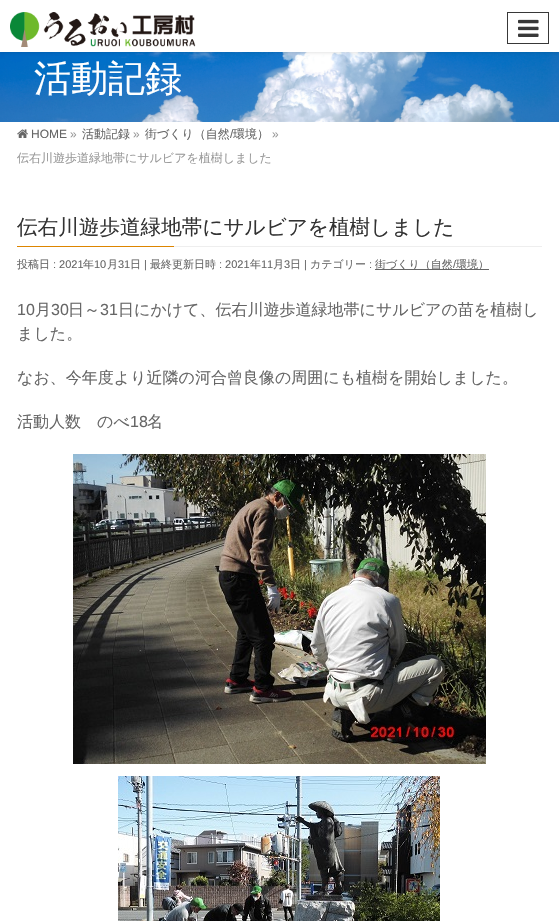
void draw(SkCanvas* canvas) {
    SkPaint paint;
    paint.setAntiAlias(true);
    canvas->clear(0xFFFFFFFF);
    canvas->drawImageRect(SkImages::DeferredFromEncodedData(SkData::MakeFromFileName("img3.png")), SkRect::MakeXYWH(0, 52, 559, 70), SkSamplingOptions());
    paint.setColor(0x1A000000);
    paint.setMaskFilter(SkMaskFilter::MakeBlur(kNormal_SkBlurStyle, 1.5f));
    canvas->drawRect(SkRect::MakeXYWH(0, 1, 559, 52), paint);
    paint.setMaskFilter(nullptr);
    paint.setColor(0xFFFFFFFF);
    canvas->drawRect(SkRect::MakeXYWH(0, 0, 559, 52), paint);
    canvas->drawImageRect(SkImages::DeferredFromEncodedData(SkData::MakeFromFileName("img1.png")), SkRect::MakeXYWH(10, 12, 186, 35), SkSamplingOptions());
    paint.setStyle(SkPaint::kStroke_Style);
    paint.setStrokeWidth(1);
    paint.setColor(0xFF383838);
    canvas->drawRect(SkRect::MakeXYWH(507.5f, 12.5f, 41, 31), paint);
    canvas->drawImageRect(SkImages::DeferredFromEncodedData(SkData::MakeFromFileName("img2.png")), SkRect::MakeXYWH(518, 19, 21, 18), SkSamplingOptions());
    SkFont font1(fontMgr->matchFamilyStyle("WenQuanYi Zen Hei", SkFontStyle(500, SkFontStyle::kNormal_Width, SkFontStyle::kUpright_Slant)), 37);
    font1.setSubpixel(true);
    paint.setStyle(SkPaint::kFill_Style);
    paint.setColor(0xFFFFFFFF);
    canvas->drawString("活動記録", 34, 91, font1, paint);
    canvas->drawImageRect(SkImages::DeferredFromEncodedData(SkData::MakeFromFileName("img4.png")), SkRect::MakeXYWH(17, 129, 11, 9), SkSamplingOptions());
    SkFont font2(fontMgr->matchFamilyStyle("Liberation Sans", SkFontStyle::Normal()), 12);
    font2.setSubpixel(true);
    paint.setColor(0xFF666666);
    canvas->drawString("HOME", 31, 138, font2, paint);
    paint.setColor(0xFF999999);
    canvas->drawString("»", 70, 138, font2, paint);
    SkFont font3(fontMgr->matchFamilyStyle("WenQuanYi Zen Hei", SkFontStyle(500, SkFontStyle::kNormal_Width, SkFontStyle::kUpright_Slant)), 12);
    font3.setSubpixel(true);
    paint.setColor(0xFF666666);
    canvas->drawString("活動記録", 82, 138, font3, paint);
    paint.setColor(0xFF999999);
    canvas->drawString("»", 133, 138, font2, paint);
    paint.setColor(0xFF666666);
    canvas->drawString("街づくり（自然", 145, 138, font3, paint);
    canvas->drawString("/", 230, 138, font2, paint);
    canvas->drawString("環境）", 233, 138, font3, paint);
    paint.setColor(0xFF999999);
    canvas->drawString("»", 272, 138, font2, paint);
    canvas->drawString("伝右川遊歩道緑地帯にサルビアを植樹しました", 17, 162, font3, paint);
    paint.setColor(0xFFEEEEEE);
    canvas->drawRect(SkRect::MakeXYWH(174, 246, 368, 1), paint);
    SkFont font4(fontMgr->matchFamilyStyle("WenQuanYi Zen Hei", SkFontStyle(500, SkFontStyle::kNormal_Width, SkFontStyle::kUpright_Slant)), 20.6f);
    font4.setSubpixel(true);
    paint.setColor(0xFF333333);
    canvas->drawString("伝右川遊歩道緑地帯にサルビアを植樹しました", 17, 234, font4, paint);
    paint.setColor(0xFFDD8500);
    canvas->drawRect(SkRect::MakeXYWH(17, 246, 157, 1), paint);
    SkFont font5(fontMgr->matchFamilyStyle("WenQuanYi Zen Hei", SkFontStyle(500, SkFontStyle::kNormal_Width, SkFontStyle::kUpright_Slant)), 11);
    font5.setSubpixel(true);
    paint.setColor(0xFF666666);
    canvas->drawString("投稿日", 17, 268, font5, paint);
    SkFont font6(fontMgr->matchFamilyStyle("Liberation Sans", SkFontStyle::Normal()), 11);
    font6.setSubpixel(true);
    canvas->drawString(": 2021", 53, 268, font6, paint);
    canvas->drawString("年", 83, 268, font5, paint);
    canvas->drawString("10", 94, 268, font6, paint);
    canvas->drawString("月", 107, 268, font5, paint);
    canvas->drawString("31", 118, 268, font6, paint);
    canvas->drawString("日", 130, 268, font5, paint);
    canvas->drawString("|", 144, 268, font6, paint);
    canvas->drawString("最終更新日時", 150, 268, font5, paint);
    canvas->drawString(": 2021", 219, 268, font6, paint);
    canvas->drawString("年", 250, 268, font5, paint);
    canvas->drawString("11", 261, 268, font6, paint);
    canvas->drawString("月", 273, 268, font5, paint);
    canvas->drawString("3", 284, 268, font6, paint);
    canvas->drawString("日", 290, 268, font5, paint);
    canvas->drawString("|", 304, 268, font6, paint);
    canvas->drawString("カテゴリー", 310, 268, font5, paint);
    canvas->drawString(":", 369, 268, font6, paint);
    canvas->drawRect(SkRect::MakeXYWH(375, 269, 114, 1), paint);
    canvas->drawString("街づくり（自然", 375, 268, font5, paint);
    canvas->drawString("/", 453, 268, font6, paint);
    canvas->drawString("環境）", 456, 268, font5, paint);
    SkFont font7(fontMgr->matchFamilyStyle("Liberation Sans", SkFontStyle::Normal()), 16);
    font7.setSubpixel(true);
    canvas->drawString("10", 17, 315, font7, paint);
    SkFont font8(fontMgr->matchFamilyStyle("WenQuanYi Zen Hei", SkFontStyle(500, SkFontStyle::kNormal_Width, SkFontStyle::kUpright_Slant)), 16);
    font8.setSubpixel(true);
    canvas->drawString("月", 35, 315, font8, paint);
    canvas->drawString("30", 51, 315, font7, paint);
    canvas->drawString("日～", 68, 315, font8, paint);
    canvas->drawString("31", 100, 315, font7, paint);
    canvas->drawString("日にかけて、伝右川遊歩道緑地帯にサルビアの苗を植樹し", 118, 315, font8, paint);
    canvas->drawString("ました。", 17, 339, font8, paint);
    canvas->drawString("なお、今年度より近隣の河合曾良像の周囲にも植樹を開始しました。", 17, 383, font8, paint);
    canvas->drawString("活動人数　のべ", 17, 427, font8, paint);
    canvas->drawString("18", 130, 427, font7, paint);
    canvas->drawString("名", 147, 427, font8, paint);
    canvas->drawImageRect(SkImages::DeferredFromEncodedData(SkData::MakeFromFileName("img5.png")), SkRect::MakeXYWH(73, 454, 413, 310), SkSamplingOptions());
    canvas->drawImageRect(SkImages::DeferredFromEncodedData(SkData::MakeFromFileName("img6.png")), SkRect::MakeXYWH(118, 776, 322, 145), SkSamplingOptions());
}
